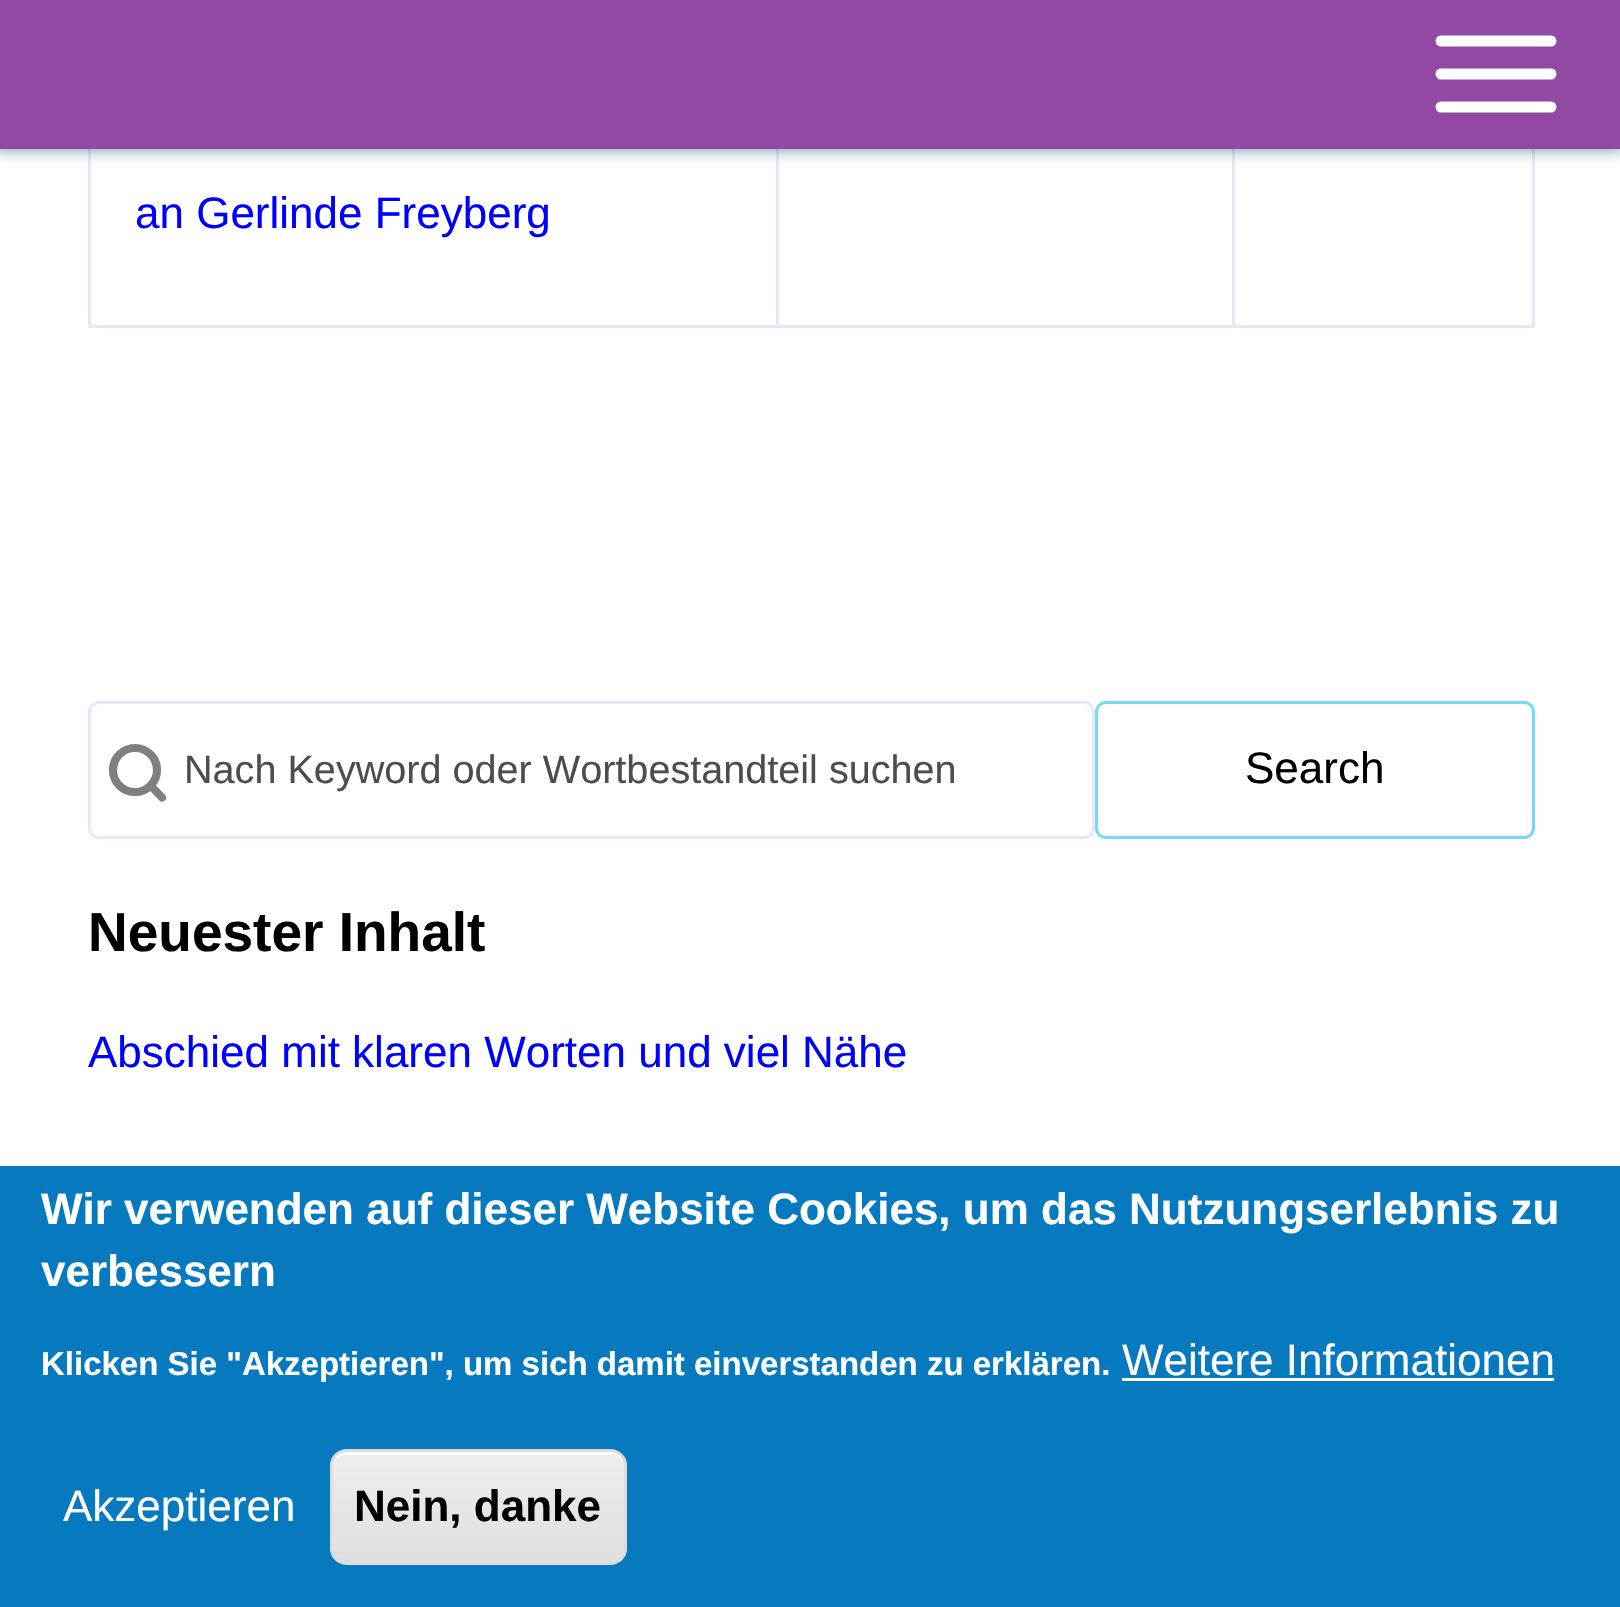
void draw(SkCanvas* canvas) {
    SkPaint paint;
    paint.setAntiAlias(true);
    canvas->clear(0xFFFFFFFF);
    paint.setColor(0xFFE9E7F9);
    canvas->drawRect(SkRect::MakeXYWH(1532, 149, 3, 178), paint);
    canvas->drawRect(SkRect::MakeXYWH(88, 325, 1447, 3), paint);
    canvas->drawRect(SkRect::MakeXYWH(88, 149, 3, 178), paint);
    canvas->drawRect(SkRect::MakeXYWH(776, 149, 3, 178), paint);
    canvas->drawRect(SkRect::MakeXYWH(1232, 149, 3, 178), paint);
    paint.setColor(0x8002475E);
    paint.setMaskFilter(SkMaskFilter::MakeBlur(kNormal_SkBlurStyle, 7));
    canvas->drawRect(SkRect::MakeXYWH(-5, -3, 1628, 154), paint);
    paint.setMaskFilter(nullptr);
    paint.setColor(0xFF9149A3);
    canvas->drawRect(SkRect::MakeXYWH(0, 0, 1620, 149), paint);
    paint.setStyle(SkPaint::kStroke_Style);
    paint.setStrokeWidth(11);
    paint.setStrokeCap(SkPaint::kRound_Cap);
    paint.setStrokeJoin(SkPaint::kRound_Join);
    paint.setColor(0xFFFFFFFF);
    canvas->drawPath(SkPathBuilder().moveTo(1441, 107).lineTo(1551, 107).close().detach(), paint);
    canvas->drawPath(SkPathBuilder().moveTo(1441, 74).lineTo(1551, 74).close().detach(), paint);
    canvas->drawPath(SkPathBuilder().moveTo(1441, 41).lineTo(1551, 41).close().detach(), paint);
    SkFont font1(fontMgr->matchFamilyStyle("Liberation Sans", SkFontStyle::Normal()), 44);
    font1.setSubpixel(true);
    paint.setStyle(SkPaint::kFill_Style);
    paint.setColor(0xFF0000FF);
    canvas->drawString("an Gerlinde Freyberg", 135, 228, font1, paint);
    paint.setStyle(SkPaint::kStroke_Style);
    paint.setStrokeWidth(3);
    paint.setStrokeCap(SkPaint::kButt_Cap);
    paint.setStrokeJoin(SkPaint::kMiter_Join);
    paint.setColor(0xFFE9E7F9);
    canvas->drawRoundRect(SkRect::MakeXYWH(89.5f, 702.5f, 1004, 135), 9.5f, 9.5f, paint);
    paint.setStrokeWidth(8.2f);
    paint.setColor(0xFF808080);
    canvas->drawCircle(135, 770, 22, paint);
    paint.setStrokeCap(SkPaint::kRound_Cap);
    paint.setStrokeJoin(SkPaint::kRound_Join);
    canvas->drawPath(SkPathBuilder().moveTo(162, 797.5f).lineTo(150.5f, 785.5f).detach(), paint);
    SkFont font2(fontMgr->matchFamilyStyle("Liberation Sans", SkFontStyle::Normal()), 39.6f);
    font2.setSubpixel(true);
    paint.setStyle(SkPaint::kFill_Style);
    paint.setColor(0xFF4D4D4D);
    canvas->drawString("Nach Keyword oder Wortbestandteil suchen", 184, 783, font2, paint);
    paint.setStyle(SkPaint::kStroke_Style);
    paint.setStrokeWidth(3);
    paint.setStrokeCap(SkPaint::kButt_Cap);
    paint.setStrokeJoin(SkPaint::kMiter_Join);
    paint.setColor(0xFF74DAFC);
    canvas->drawRoundRect(SkRect::MakeXYWH(1096.5f, 702.5f, 437, 135), 9.5f, 9.5f, paint);
    paint.setStyle(SkPaint::kFill_Style);
    paint.setColor(0xFF000000);
    canvas->drawString("Search", 1245, 783, font1, paint);
    SkFont font3(fontMgr->matchFamilyStyle("Liberation Sans", SkFontStyle::Bold()), 55);
    font3.setSubpixel(true);
    canvas->drawString("Neuester Inhalt", 88, 951, font3, paint);
    paint.setColor(0xFF0000FF);
    canvas->drawString("Abschied mit klaren Worten und viel Nähe", 88, 1067, font1, paint);
    paint.setColor(0xFF0779BF);
    canvas->drawRect(SkRect::MakeXYWH(0, 1166, 1620, 441), paint);
    SkFont font4(fontMgr->matchFamilyStyle("Liberation Sans", SkFontStyle::Bold()), 44);
    font4.setSubpixel(true);
    paint.setColor(0xFFFFFFFF);
    canvas->drawString("Wir verwenden auf dieser Website Cookies, um das Nutzungserlebnis zu", 41, 1224, font4, paint);
    canvas->drawString("verbessern", 41, 1286, font4, paint);
    SkFont font5(fontMgr->matchFamilyStyle("Liberation Sans", SkFontStyle::Bold()), 33);
    font5.setSubpixel(true);
    canvas->drawString("Klicken Sie \"Akzeptieren\", um sich damit einverstanden zu erklären.", 41, 1375, font5, paint);
    canvas->drawString("Weitere Informationen", 1122, 1375, font1, paint);
    canvas->drawRect(SkRect::MakeXYWH(1122, 1378, 432, 3), paint);
    canvas->drawString("Akzeptieren", 63, 1521, font1, paint);
    canvas->save();
    canvas->clipPath(SkPathBuilder().moveTo(347, 1449).lineTo(610, 1449).cubicTo(619.5f, 1449, 627, 1456.5f, 627, 1466).lineTo(627, 1548).cubicTo(627, 1557.5f, 619.5f, 1565, 610, 1565).lineTo(347, 1565).cubicTo(337.5f, 1565, 330, 1557.5f, 330, 1548).lineTo(330, 1466).cubicTo(330, 1456.5f, 337.5f, 1449, 347, 1449).close().detach(), true);
    {
        const SkColor colors[] = {0xFFEDEDED, 0xFFDFDFDF};
        const float stops[] = {0.05f, 1};
        const SkPoint ends[] = {{479, 1452}, {479, 1562}};
        paint.setShader(SkGradientShader::MakeLinear(ends, colors, stops, 2, SkTileMode::kClamp));
        paint.setAlpha(255);
    }
    canvas->drawRect(SkRect::MakeXYWH(330, 1452, 297, 110), paint);
    canvas->restore();
    paint.setShader(nullptr);
    paint.setColor(0xFFFFFFFF);
    canvas->drawPath(SkPathBuilder().moveTo(346, 1455).lineTo(610, 1455).cubicTo(618, 1455, 624, 1461, 624, 1468).lineTo(624, 1466).cubicTo(624, 1458, 618, 1452, 610, 1452).lineTo(347, 1452).cubicTo(339, 1452, 333, 1458, 333, 1466).lineTo(333, 1468).cubicTo(333, 1461, 339, 1455, 346, 1455).close().detach(), paint);
    paint.setStyle(SkPaint::kStroke_Style);
    paint.setColor(0xFFDCDCDC);
    canvas->drawRoundRect(SkRect::MakeXYWH(331.5f, 1450.5f, 294, 113), 15.5f, 15.5f, paint);
    paint.setStyle(SkPaint::kFill_Style);
    paint.setColor(0xFF000000);
    canvas->drawString("Nein, danke", 354, 1521, font4, paint);
}
